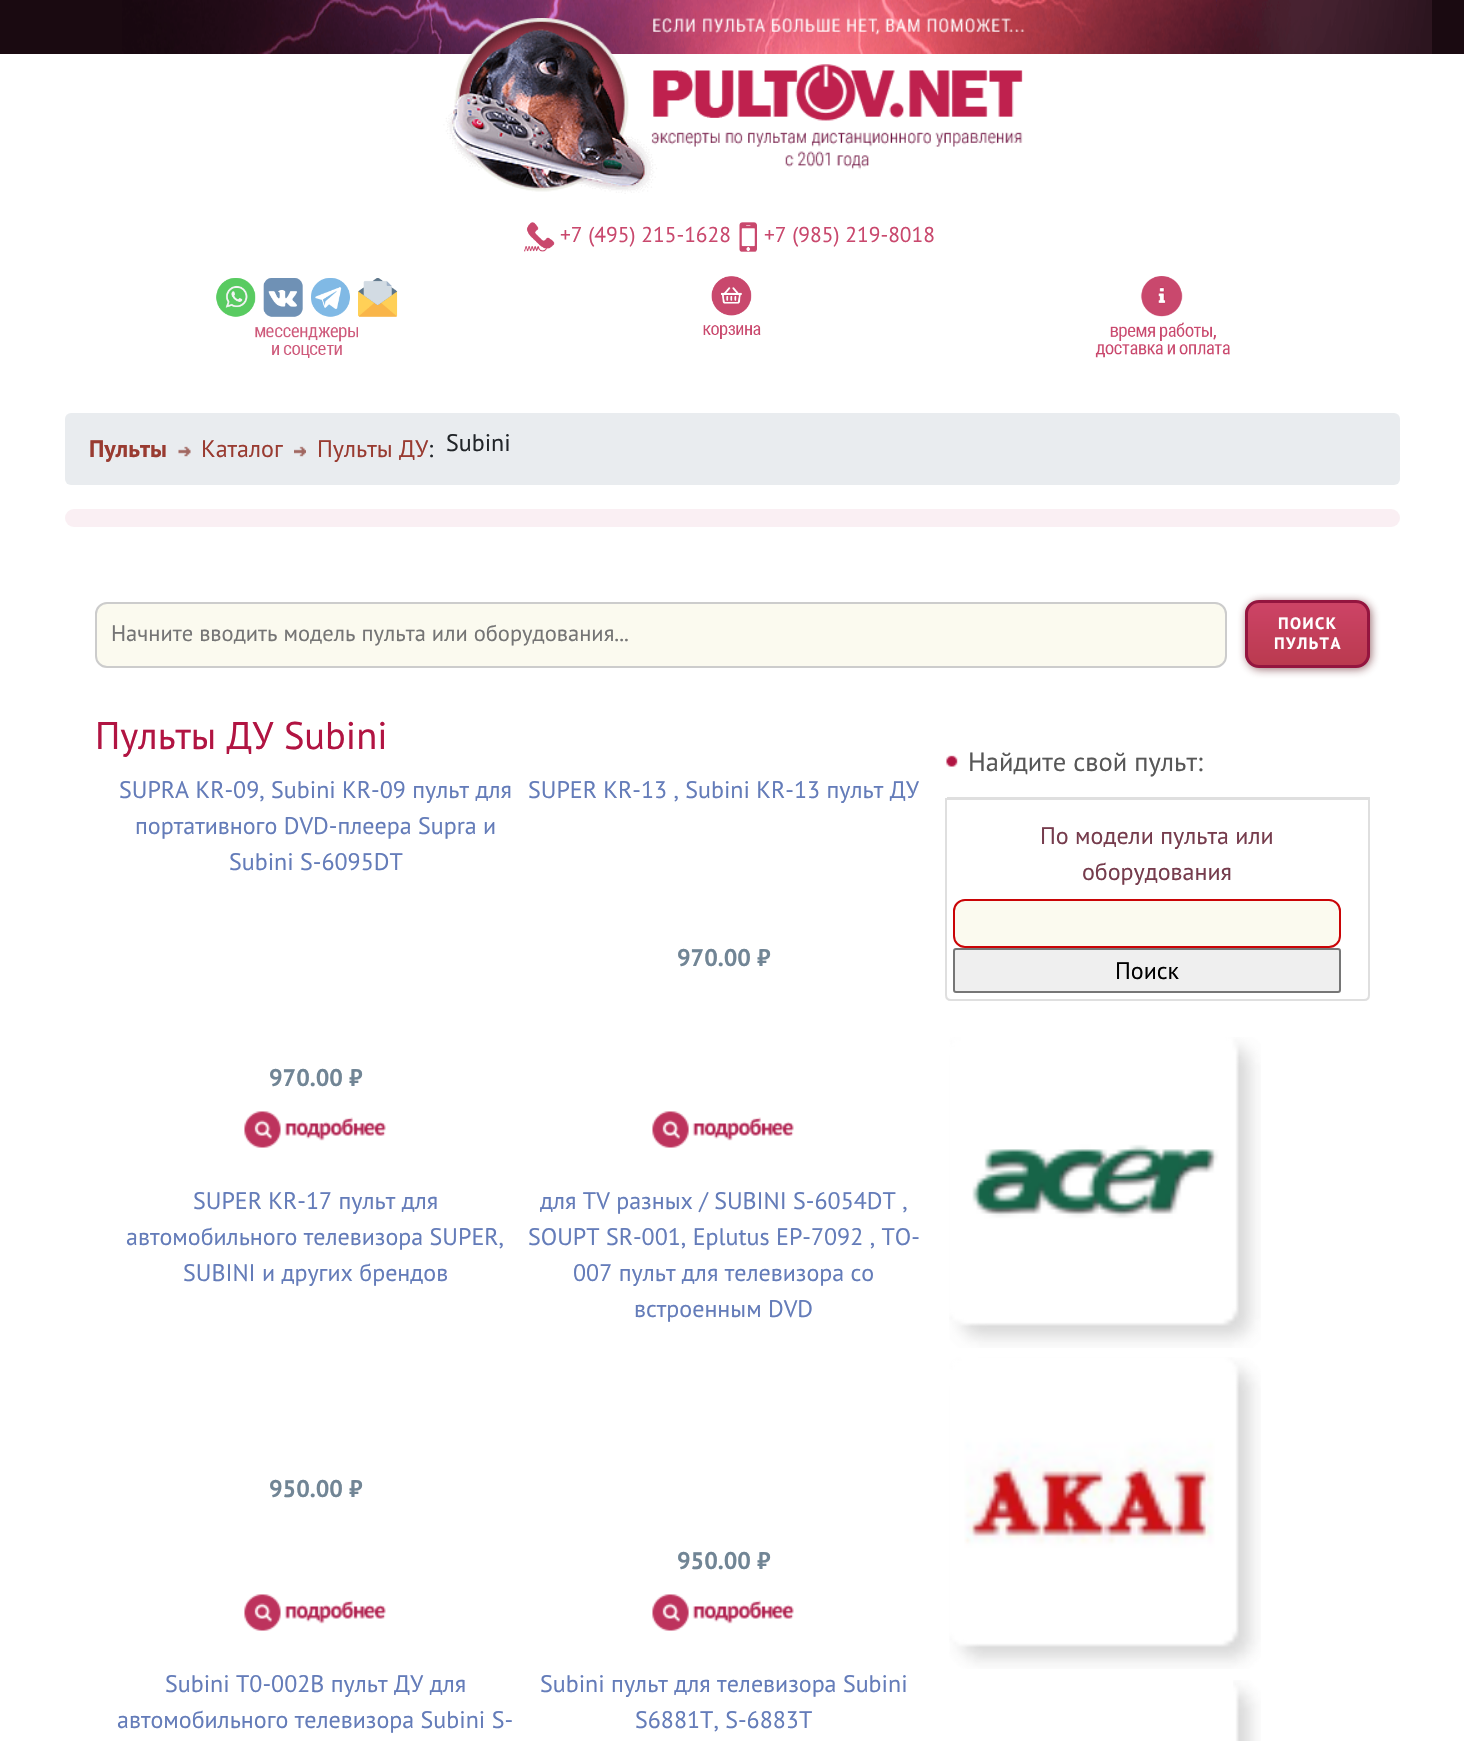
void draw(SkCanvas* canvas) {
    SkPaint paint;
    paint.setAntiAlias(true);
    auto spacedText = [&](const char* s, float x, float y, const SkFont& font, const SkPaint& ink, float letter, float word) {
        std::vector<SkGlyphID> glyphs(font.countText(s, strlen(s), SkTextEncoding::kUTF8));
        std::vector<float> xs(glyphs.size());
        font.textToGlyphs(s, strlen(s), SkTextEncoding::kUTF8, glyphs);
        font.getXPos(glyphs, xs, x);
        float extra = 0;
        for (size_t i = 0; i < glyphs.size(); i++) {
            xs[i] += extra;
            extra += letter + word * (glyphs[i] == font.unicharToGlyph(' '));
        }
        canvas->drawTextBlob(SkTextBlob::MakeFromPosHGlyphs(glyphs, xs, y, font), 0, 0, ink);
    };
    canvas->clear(0xFFFFFFFF);
    canvas->drawImageRect(SkImages::DeferredFromEncodedData(SkData::MakeFromFileName("img1.png")), SkRect::MakeXYWH(0, 0, 1464, 54), SkSamplingOptions());
    canvas->drawImageRect(SkImages::DeferredFromEncodedData(SkData::MakeFromFileName("img2.png")), SkRect::MakeXYWH(443, 18, 582, 176), SkSamplingOptions());
    canvas->drawImageRect(SkImages::DeferredFromEncodedData(SkData::MakeFromFileName("img3.png")), SkRect::MakeXYWH(524, 222, 31, 30), SkSamplingOptions());
    SkFont font1(fontMgr->matchFamilyStyle("PT Sans", SkFontStyle::Normal()), 21.5f);
    font1.setSubpixel(true);
    paint.setColor(0xFFC9486D);
    canvas->drawString("+7 (495) 215-1628", 560, 242, font1, paint);
    canvas->drawImageRect(SkImages::DeferredFromEncodedData(SkData::MakeFromFileName("img4.png")), SkRect::MakeXYWH(739, 222, 18, 30), SkSamplingOptions());
    canvas->drawString("+7 (985) 219-8018", 764, 242, font1, paint);
    canvas->drawImageRect(SkImages::DeferredFromEncodedData(SkData::MakeFromFileName("img5.png")), SkRect::MakeXYWH(216, 278, 182, 80), SkSamplingOptions());
    canvas->drawImageRect(SkImages::DeferredFromEncodedData(SkData::MakeFromFileName("img6.png")), SkRect::MakeXYWH(703, 276, 58, 63), SkSamplingOptions());
    canvas->drawImageRect(SkImages::DeferredFromEncodedData(SkData::MakeFromFileName("img7.png")), SkRect::MakeXYWH(1095, 276, 135, 82), SkSamplingOptions());
    paint.setColor(0xFFE9ECEF);
    canvas->drawRoundRect(SkRect::MakeXYWH(65, 413, 1335, 72), 6, 6, paint);
    SkFont font2(fontMgr->matchFamilyStyle("PT Sans", SkFontStyle::Bold()), 24);
    font2.setSubpixel(true);
    paint.setColor(0xFF993B31);
    canvas->drawString("Пульты", 89, 457, font2, paint);
    canvas->drawImageRect(SkImages::DeferredFromEncodedData(SkData::MakeFromFileName("img8.png")), SkRect::MakeXYWH(178, 446, 13, 11), SkSamplingOptions());
    SkFont font3(fontMgr->matchFamilyStyle("PT Sans", SkFontStyle::Normal()), 24);
    font3.setSubpixel(true);
    canvas->drawString("Каталог", 201, 457, font3, paint);
    canvas->drawImageRect(SkImages::DeferredFromEncodedData(SkData::MakeFromFileName("img9.png")), SkRect::MakeXYWH(294, 446, 12, 11), SkSamplingOptions());
    canvas->drawString("Пульты ДУ", 317, 457, font3, paint);
    paint.setColor(0xFF212529);
    canvas->drawString(":", 428, 457, font3, paint);
    canvas->drawString("Subini", 446, 451, font3, paint);
    paint.setColor(0xFFFAEFF3);
    canvas->drawRoundRect(SkRect::MakeXYWH(65, 509, 1335, 18), 9, 9, paint);
    paint.setColor(0xFFFBFAEF);
    canvas->drawRoundRect(SkRect::MakeXYWH(96, 603, 1130, 64), 11, 11, paint);
    paint.setStyle(SkPaint::kStroke_Style);
    paint.setStrokeWidth(2);
    paint.setColor(0xFFCCCCCC);
    canvas->drawRoundRect(SkRect::MakeXYWH(96, 603, 1130, 64), 11, 11, paint);
    SkFont font4(fontMgr->matchFamilyStyle("PT Sans", SkFontStyle::Normal()), 22.5f);
    font4.setSubpixel(true);
    paint.setStyle(SkPaint::kFill_Style);
    paint.setColor(0xFF757575);
    canvas->drawString("Начните вводить модель пульта или оборудования...", 111, 641, font4, paint);
    paint.setColor(0xA6571016);
    paint.setMaskFilter(SkMaskFilter::MakeBlur(kNormal_SkBlurStyle, 5));
    canvas->drawRoundRect(SkRect::MakeXYWH(1247, 602, 124, 67), 14, 14, paint);
    paint.setMaskFilter(nullptr);
    canvas->save();
    canvas->clipPath(SkPathBuilder().moveTo(1259, 600).lineTo(1356, 600).cubicTo(1363.5f, 600, 1370, 606.5f, 1370, 614).lineTo(1370, 654).cubicTo(1370, 661.5f, 1363.5f, 668, 1356, 668).lineTo(1259, 668).cubicTo(1251.5f, 668, 1245, 661.5f, 1245, 654).lineTo(1245, 614).cubicTo(1245, 606.5f, 1251.5f, 600, 1259, 600).close().detach(), true);
    {
        const SkColor colors[] = {0xFFCC4365, 0xFFBA3A4F};
        const float stops[] = {0.05f, 1};
        const SkPoint ends[] = {{1248, 603}, {1248, 665}};
        paint.setShader(SkGradientShader::MakeLinear(ends, colors, stops, 2, SkTileMode::kClamp));
        paint.setAlpha(255);
    }
    canvas->drawRect(SkRect::MakeXYWH(1245, 603, 125, 62), paint);
    canvas->restore();
    paint.setStyle(SkPaint::kStroke_Style);
    paint.setStrokeWidth(3);
    paint.setShader(nullptr);
    paint.setColor(0xFF94153F);
    canvas->drawRoundRect(SkRect::MakeXYWH(1246.5f, 601.5f, 122, 65), 12.5f, 12.5f, paint);
    SkFont font5(fontMgr->matchFamilyStyle("PT Sans", SkFontStyle::Bold()), 16.5f);
    font5.setSubpixel(true);
    paint.setStyle(SkPaint::kFill_Style);
    paint.setColor(0xFFFFFFFF);
    spacedText("ПОИСК", 1278, 629, font5, paint, 1.5f, 0);
    spacedText("ПУЛЬТА", 1274, 649, font5, paint, 1.5f, 0);
    SkFont font6(fontMgr->matchFamilyStyle("PT Sans", SkFontStyle::Normal()), 38.5f);
    font6.setSubpixel(true);
    paint.setColor(0xFFB11442);
    canvas->drawString("Пульты ДУ Subini", 95, 749, font6, paint);
    paint.setColor(0xFF647CB9);
    canvas->drawString("SUPRA KR-09, Subini KR-09 пульт для", 119, 798, font3, paint);
    canvas->drawString("портативного DVD-плеера Supra и", 135, 834, font3, paint);
    canvas->drawString("Subini S-6095DT", 229, 870, font3, paint);
    paint.setColor(0xFF718595);
    canvas->drawString("970.00 ₽", 269, 1086, font2, paint);
    canvas->drawImageRect(SkImages::DeferredFromEncodedData(SkData::MakeFromFileName("img10.png")), SkRect::MakeXYWH(244, 1111, 142, 37), SkSamplingOptions());
    paint.setColor(0xFF647CB9);
    canvas->drawString("SUPER KR-13 , Subini KR-13 пульт ДУ", 528, 798, font3, paint);
    paint.setColor(0xFF718595);
    canvas->drawString("970.00 ₽", 677, 966, font2, paint);
    canvas->drawImageRect(SkImages::DeferredFromEncodedData(SkData::MakeFromFileName("img11.png")), SkRect::MakeXYWH(652, 1111, 142, 37), SkSamplingOptions());
    paint.setColor(0xFF647CB9);
    canvas->drawString("SUPER KR-17 пульт для", 193, 1209, font3, paint);
    canvas->drawString("автомобильного телевизора SUPER,", 126, 1245, font3, paint);
    canvas->drawString("SUBINI и других брендов", 183, 1281, font3, paint);
    paint.setColor(0xFF718595);
    canvas->drawString("950.00 ₽", 269, 1497, font2, paint);
    canvas->drawImageRect(SkImages::DeferredFromEncodedData(SkData::MakeFromFileName("img10.png")), SkRect::MakeXYWH(244, 1594, 142, 37), SkSamplingOptions());
    paint.setColor(0xFF647CB9);
    canvas->drawString("для TV разных / SUBINI S-6054DT ,", 540, 1209, font3, paint);
    canvas->drawString("SOUPT SR-001, Eplutus EP-7092 , TO-", 528, 1245, font3, paint);
    canvas->drawString("007 пульт для телевизора со", 573, 1281, font3, paint);
    canvas->drawString("встроенным DVD", 634, 1317, font3, paint);
    paint.setColor(0xFF718595);
    canvas->drawString("950.00 ₽", 677, 1569, font2, paint);
    canvas->drawImageRect(SkImages::DeferredFromEncodedData(SkData::MakeFromFileName("img11.png")), SkRect::MakeXYWH(652, 1594, 142, 37), SkSamplingOptions());
    paint.setColor(0xFF647CB9);
    canvas->drawString("Subini T0-002B пульт ДУ для", 165, 1692, font3, paint);
    canvas->drawString("автомобильного телевизора Subini S-", 117, 1728, font3, paint);
    canvas->drawString("Subini пульт для телевизора Subini", 540, 1692, font3, paint);
    canvas->drawString("S6881T, S-6883T", 635, 1728, font3, paint);
    canvas->drawImageRect(SkImages::DeferredFromEncodedData(SkData::MakeFromFileName("img12.png")), SkRect::MakeXYWH(946, 755, 12, 12), SkSamplingOptions());
    SkFont font7(fontMgr->matchFamilyStyle("PT Sans", SkFontStyle::Normal()), 26.5f);
    font7.setSubpixel(true);
    paint.setColor(0xFF575757);
    canvas->drawString("Найдите свой пульт:", 968, 771, font7, paint);
    paint.setColor(0xFFDFDFDF);
    canvas->drawRect(SkRect::MakeXYWH(947, 797, 423, 1), paint);
    paint.setStyle(SkPaint::kStroke_Style);
    paint.setStrokeWidth(2);
    canvas->drawPath(SkPathBuilder().moveTo(946, 799).lineTo(1369, 799).lineTo(1369, 995).cubicTo(1369, 998, 1367, 1000, 1364, 1000).lineTo(951, 1000).cubicTo(948, 1000, 946, 998, 946, 995).close().detach(), paint);
    paint.setStyle(SkPaint::kFill_Style);
    paint.setColor(0xFF763C4D);
    canvas->drawString("По модели пульта или", 1040, 844, font3, paint);
    canvas->drawString("оборудования", 1082, 880, font3, paint);
    paint.setColor(0xFFFBFAEF);
    canvas->drawRoundRect(SkRect::MakeXYWH(954, 900, 386, 47), 11, 11, paint);
    paint.setStyle(SkPaint::kStroke_Style);
    paint.setColor(0xFFCA0406);
    canvas->drawRoundRect(SkRect::MakeXYWH(954, 900, 386, 47), 11, 11, paint);
    paint.setStyle(SkPaint::kFill_Style);
    paint.setColor(0xFFEFEFEF);
    canvas->drawRoundRect(SkRect::MakeXYWH(954, 949, 386, 43), 2, 2, paint);
    paint.setStyle(SkPaint::kStroke_Style);
    paint.setColor(0xFF767676);
    canvas->drawRoundRect(SkRect::MakeXYWH(954, 949, 386, 43), 2, 2, paint);
    paint.setStyle(SkPaint::kFill_Style);
    paint.setColor(0xFF000000);
    canvas->drawString("Поиск", 1115, 979, font3, paint);
    canvas->drawImageRect(SkImages::DeferredFromEncodedData(SkData::MakeFromFileName("img13.png")), SkRect::MakeXYWH(949, 1037, 312, 311), SkSamplingOptions());
    canvas->drawImageRect(SkImages::DeferredFromEncodedData(SkData::MakeFromFileName("img14.png")), SkRect::MakeXYWH(949, 1357, 312, 312), SkSamplingOptions());
    canvas->drawImageRect(SkImages::DeferredFromEncodedData(SkData::MakeFromFileName("img15.png")), SkRect::MakeXYWH(1233, 1680, 28, 61), SkSamplingOptions());
}
